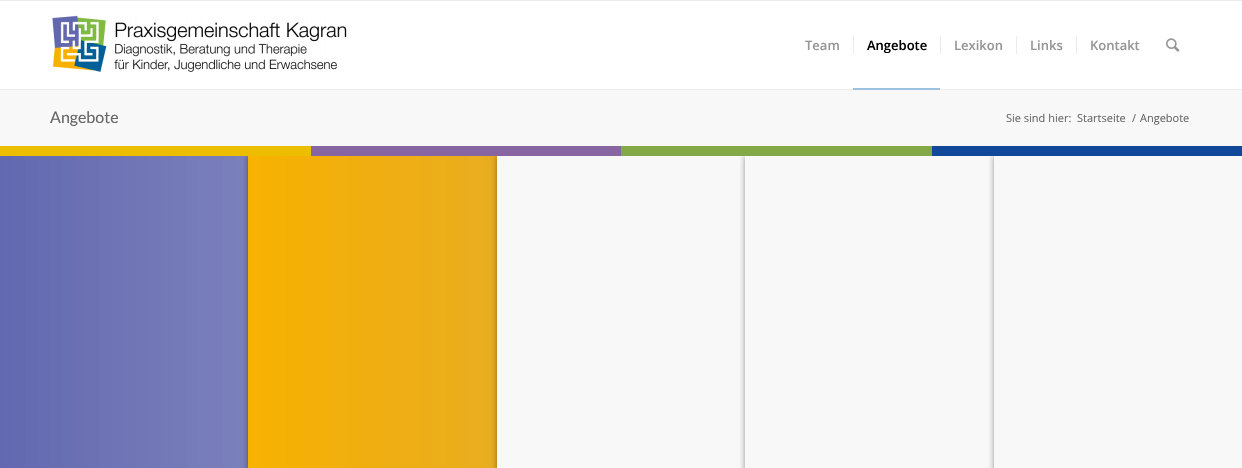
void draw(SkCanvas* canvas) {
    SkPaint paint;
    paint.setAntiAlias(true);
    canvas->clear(0xFFFFFFFF);
    paint.setColor(0xFFEBEBEB);
    canvas->drawRect(SkRect::MakeXYWH(0, 0, 1242, 1), paint);
    canvas->drawRect(SkRect::MakeXYWH(0, 89, 1242, 1), paint);
    canvas->drawImageRect(SkImages::DeferredFromEncodedData(SkData::MakeFromFileName("img1.png")), SkRect::MakeXYWH(52, 15, 295, 57), SkSamplingOptions());
    SkFont font1(fontMgr->matchFamilyStyle("Open Sans", SkFontStyle(600, SkFontStyle::kNormal_Width, SkFontStyle::kUpright_Slant)), 13);
    font1.setSubpixel(true);
    paint.setColor(0xFF969696);
    canvas->drawString("Team", 805, 50, font1, paint);
    paint.setColor(0xFF000000);
    canvas->drawString("Angebote", 867, 50, font1, paint);
    paint.setColor(0xFFEBEBEB);
    canvas->drawRect(SkRect::MakeXYWH(853, 36, 1, 18), paint);
    paint.setColor(0xFF9CC2DF);
    canvas->drawRect(SkRect::MakeXYWH(853, 88, 87, 2), paint);
    paint.setColor(0xFF969696);
    canvas->drawString("Lexikon", 954, 50, font1, paint);
    paint.setColor(0xFFEBEBEB);
    canvas->drawRect(SkRect::MakeXYWH(940, 36, 1, 18), paint);
    paint.setColor(0xFF969696);
    canvas->drawString("Links", 1030, 50, font1, paint);
    paint.setColor(0xFFEBEBEB);
    canvas->drawRect(SkRect::MakeXYWH(1016, 36, 1, 18), paint);
    paint.setColor(0xFF969696);
    canvas->drawString("Kontakt", 1090, 50, font1, paint);
    paint.setColor(0xFFEBEBEB);
    canvas->drawRect(SkRect::MakeXYWH(1076, 36, 1, 18), paint);
    canvas->drawImageRect(SkImages::DeferredFromEncodedData(SkData::MakeFromFileName("img2.png")), SkRect::MakeXYWH(1166, 38, 14, 14), SkSamplingOptions());
    paint.setColor(0xFFF8F8F8);
    canvas->drawRect(SkRect::MakeXYWH(0, 90, 1242, 56), paint);
    SkFont font2(fontMgr->matchFamilyStyle("Lato", SkFontStyle::Normal()), 16);
    font2.setSubpixel(true);
    paint.setColor(0xFF666666);
    canvas->drawString("Angebote", 50, 123, font2, paint);
    SkFont font3(fontMgr->matchFamilyStyle("Open Sans", SkFontStyle::Normal()), 11);
    font3.setSubpixel(true);
    canvas->drawString("Sie sind hier:", 1006, 122, font3, paint);
    canvas->drawString("Startseite", 1077, 122, font3, paint);
    canvas->drawString("/", 1132, 122, font3, paint);
    canvas->drawString("Angebote", 1140, 122, font3, paint);
    paint.setColor(0xFFEDBD00);
    canvas->drawRect(SkRect::MakeXYWH(0, 146, 311, 10), paint);
    paint.setColor(0xFF8765A0);
    canvas->drawRect(SkRect::MakeXYWH(311, 146, 310, 10), paint);
    paint.setColor(0xFF83A846);
    canvas->drawRect(SkRect::MakeXYWH(621, 146, 311, 10), paint);
    paint.setColor(0xFF124899);
    canvas->drawRect(SkRect::MakeXYWH(932, 146, 310, 10), paint);
    canvas->drawImageRect(SkImages::DeferredFromEncodedData(SkData::MakeFromFileName("img4.png")), SkRect::MakeXYWH(0, 156, 497, 312), SkSamplingOptions());
    canvas->save();
    canvas->clipRect(SkRect::MakeXYWH(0, 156, 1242, 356));
    canvas->clipRect(SkRect::MakeXYWH(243, 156, 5, 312));
    paint.setColor(0x66000000);
    paint.setMaskFilter(SkMaskFilter::MakeBlur(kNormal_SkBlurStyle, 3));
    canvas->drawRect(SkRect::MakeXYWH(248, 156, 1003, 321), paint);
    paint.setMaskFilter(nullptr);
    canvas->restore();
    canvas->drawImageRect(SkImages::DeferredFromEncodedData(SkData::MakeFromFileName("img3.png")), SkRect::MakeXYWH(248, 156, 249, 312), SkSamplingOptions());
    canvas->save();
    canvas->clipRect(SkRect::MakeXYWH(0, 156, 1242, 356));
    paint.setMaskFilter(SkMaskFilter::MakeBlur(kNormal_SkBlurStyle, 3));
    canvas->drawRect(SkRect::MakeXYWH(497, 156, 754, 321), paint);
    paint.setMaskFilter(nullptr);
    canvas->restore();
    paint.setColor(0xFFF8F8F8);
    canvas->drawRect(SkRect::MakeXYWH(497, 156, 745, 312), paint);
    canvas->save();
    canvas->clipRect(SkRect::MakeXYWH(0, 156, 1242, 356));
    canvas->clipRect(SkRect::MakeXYWH(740, 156, 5, 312));
    paint.setColor(0x66000000);
    paint.setMaskFilter(SkMaskFilter::MakeBlur(kNormal_SkBlurStyle, 3));
    canvas->drawRect(SkRect::MakeXYWH(745, 156, 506, 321), paint);
    paint.setMaskFilter(nullptr);
    canvas->restore();
    canvas->save();
    canvas->clipRect(SkRect::MakeXYWH(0, 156, 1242, 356));
    canvas->clipRect(SkRect::MakeXYWH(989, 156, 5, 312));
    paint.setMaskFilter(SkMaskFilter::MakeBlur(kNormal_SkBlurStyle, 3));
    canvas->drawRect(SkRect::MakeXYWH(994, 156, 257, 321), paint);
    paint.setMaskFilter(nullptr);
    canvas->restore();
}
